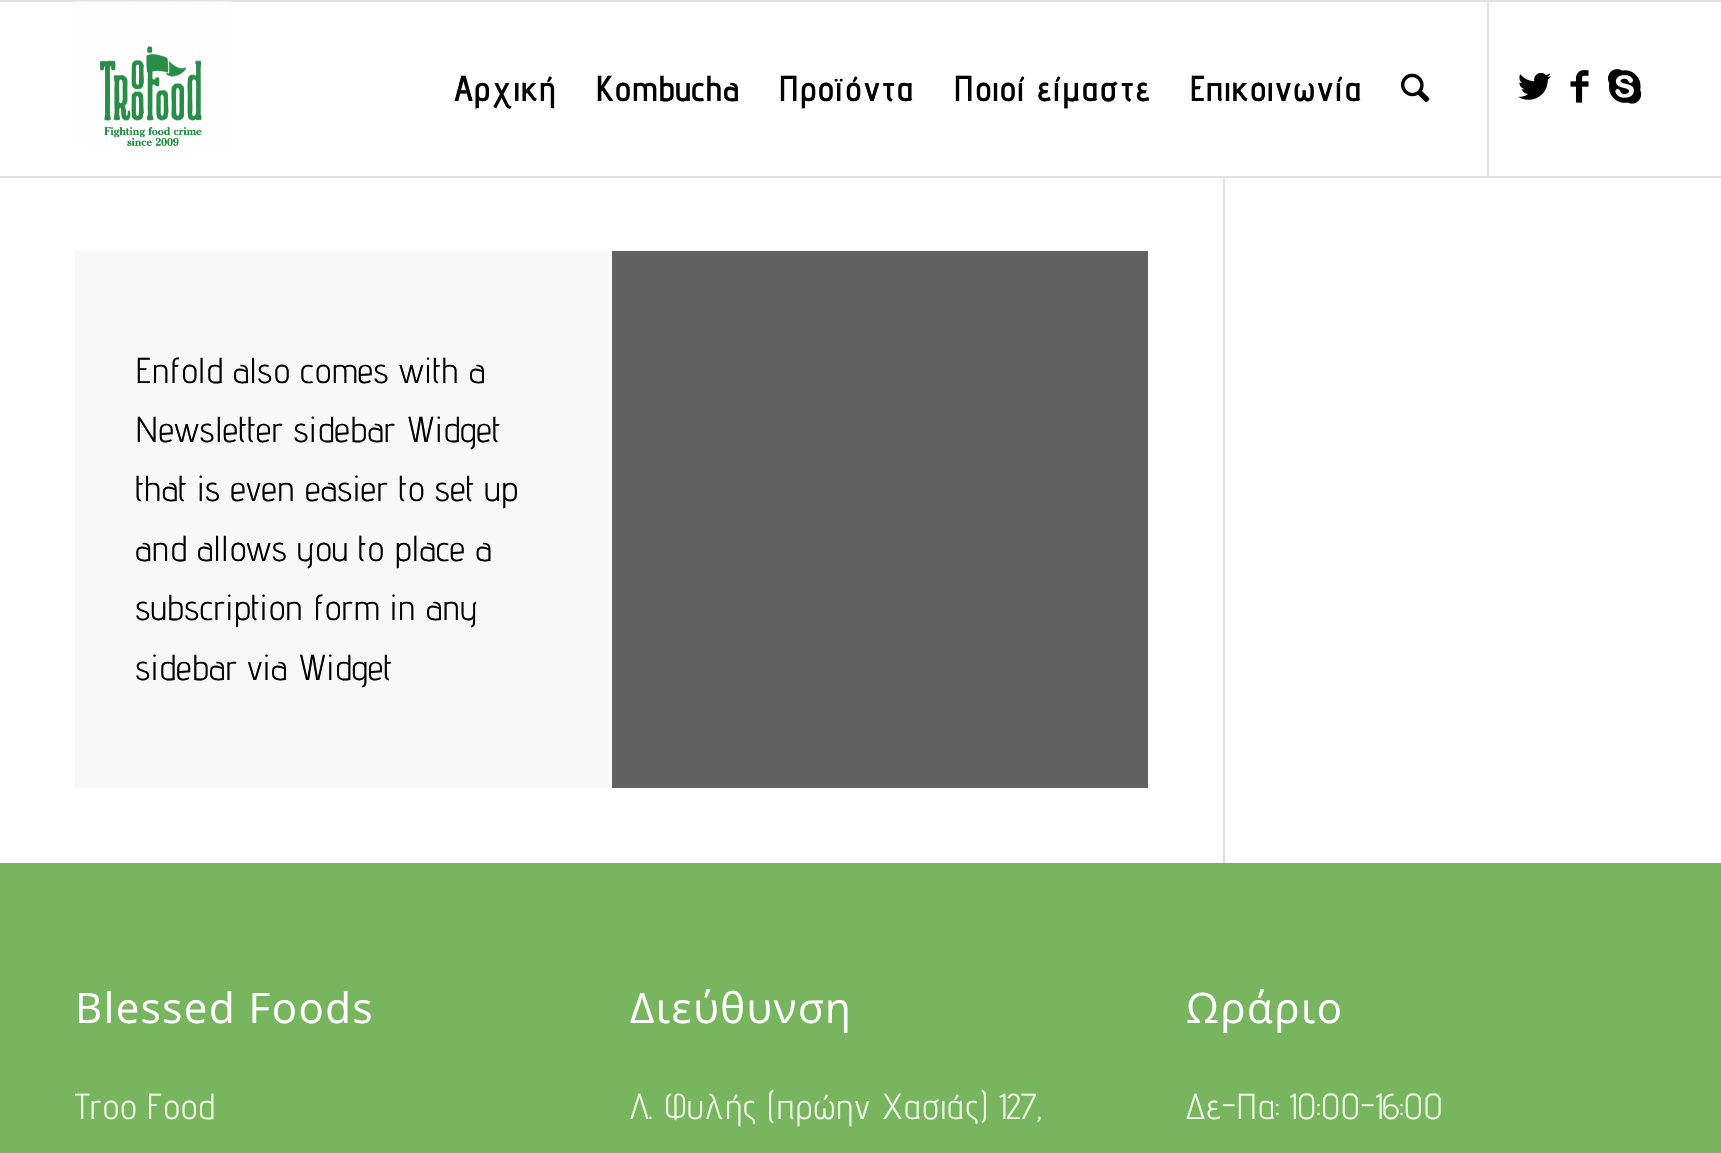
void draw(SkCanvas* canvas) {
    SkPaint paint;
    paint.setAntiAlias(true);
    auto spacedText = [&](const char* s, float x, float y, const SkFont& font, const SkPaint& ink, float letter, float word) {
        std::vector<SkGlyphID> glyphs(font.countText(s, strlen(s), SkTextEncoding::kUTF8));
        std::vector<float> xs(glyphs.size());
        font.textToGlyphs(s, strlen(s), SkTextEncoding::kUTF8, glyphs);
        font.getXPos(glyphs, xs, x);
        float extra = 0;
        for (size_t i = 0; i < glyphs.size(); i++) {
            xs[i] += extra;
            extra += letter + word * (glyphs[i] == font.unicharToGlyph(' '));
        }
        canvas->drawTextBlob(SkTextBlob::MakeFromPosHGlyphs(glyphs, xs, y, font), 0, 0, ink);
    };
    canvas->clear(0xFFFFFFFF);
    paint.setColor(0xFFE1E1E1);
    canvas->drawRect(SkRect::MakeXYWH(0, 0, 1721, 2), paint);
    canvas->drawRect(SkRect::MakeXYWH(0, 176, 1721, 2), paint);
    canvas->drawImageRect(SkImages::DeferredFromEncodedData(SkData::MakeFromFileName("img1.png")), SkRect::MakeXYWH(75, 1, 156, 146), SkSamplingOptions());
    canvas->drawRect(SkRect::MakeXYWH(1487, 2, 2, 174), paint);
    SkFont font1(fontMgr->matchFamilyStyle("Advent Pro", SkFontStyle(600, SkFontStyle::kNormal_Width, SkFontStyle::kUpright_Slant)), 36);
    font1.setSubpixel(true);
    paint.setColor(0xFF000000);
    canvas->drawString("Αρχική", 454, 101, font1, paint);
    canvas->drawString("Kombucha", 595, 101, font1, paint);
    canvas->drawString("Προϊόντα", 778, 101, font1, paint);
    canvas->drawString("Ποιοί είμαστε", 953, 101, font1, paint);
    canvas->drawString("Επικοινωνία", 1189, 101, font1, paint);
    canvas->drawImageRect(SkImages::DeferredFromEncodedData(SkData::MakeFromFileName("img2.png")), SkRect::MakeXYWH(1401, 73, 29, 30), SkSamplingOptions());
    canvas->drawImageRect(SkImages::DeferredFromEncodedData(SkData::MakeFromFileName("img3.png")), SkRect::MakeXYWH(1518, 72, 33, 28), SkSamplingOptions());
    canvas->drawImageRect(SkImages::DeferredFromEncodedData(SkData::MakeFromFileName("img4.png")), SkRect::MakeXYWH(1570, 70, 19, 33), SkSamplingOptions());
    canvas->drawImageRect(SkImages::DeferredFromEncodedData(SkData::MakeFromFileName("img5.png")), SkRect::MakeXYWH(1608, 69, 34, 35), SkSamplingOptions());
    paint.setColor(0xFFE1E1E1);
    canvas->drawRect(SkRect::MakeXYWH(1223, 178, 2, 685), paint);
    paint.setColor(0xFFF8F8F8);
    canvas->drawRect(SkRect::MakeXYWH(75, 251, 537, 537), paint);
    SkFont font2(fontMgr->matchFamilyStyle("Advent Pro", SkFontStyle::Normal()), 36);
    font2.setSubpixel(true);
    paint.setColor(0xFF000000);
    canvas->drawString("Enfold also comes with a", 135, 383, font2, paint);
    canvas->drawString("Newsletter sidebar Widget", 135, 442, font2, paint);
    canvas->drawString("that is even easier to set up", 135, 501, font2, paint);
    canvas->drawString("and allows you to place a", 135, 561, font2, paint);
    canvas->drawString("subscription form in any", 135, 620, font2, paint);
    canvas->drawString("sidebar via Widget", 135, 680, font2, paint);
    paint.setColor(0xFF616161);
    canvas->drawRect(SkRect::MakeXYWH(612, 251, 536, 537), paint);
    paint.setColor(0xFF77B55F);
    canvas->drawRect(SkRect::MakeXYWH(0, 863, 1721, 290), paint);
    SkFont font3(fontMgr->matchFamilyStyle("Open Sans", SkFontStyle::Normal()), 42);
    font3.setSubpixel(true);
    paint.setColor(0xFFFFFFFF);
    spacedText("Blessed Foods", 75, 1023, font3, paint, 1.5f, 0);
    paint.setColor(0xFFECF2E1);
    canvas->drawString("Troo Food", 75, 1119, font2, paint);
    paint.setColor(0xFFFFFFFF);
    spacedText("Διεύθυνση", 630, 1023, font3, paint, 1.5f, 0);
    paint.setColor(0xFFECF2E1);
    canvas->drawString("Λ. Φυλής (πρώην Χασιάς) 127,", 630, 1119, font2, paint);
    paint.setColor(0xFFFFFFFF);
    spacedText("Ωράριο", 1186, 1023, font3, paint, 1.5f, 0);
    paint.setColor(0xFFECF2E1);
    canvas->drawString("Δε-Πα: 10:00-16:00", 1186, 1119, font2, paint);
}
